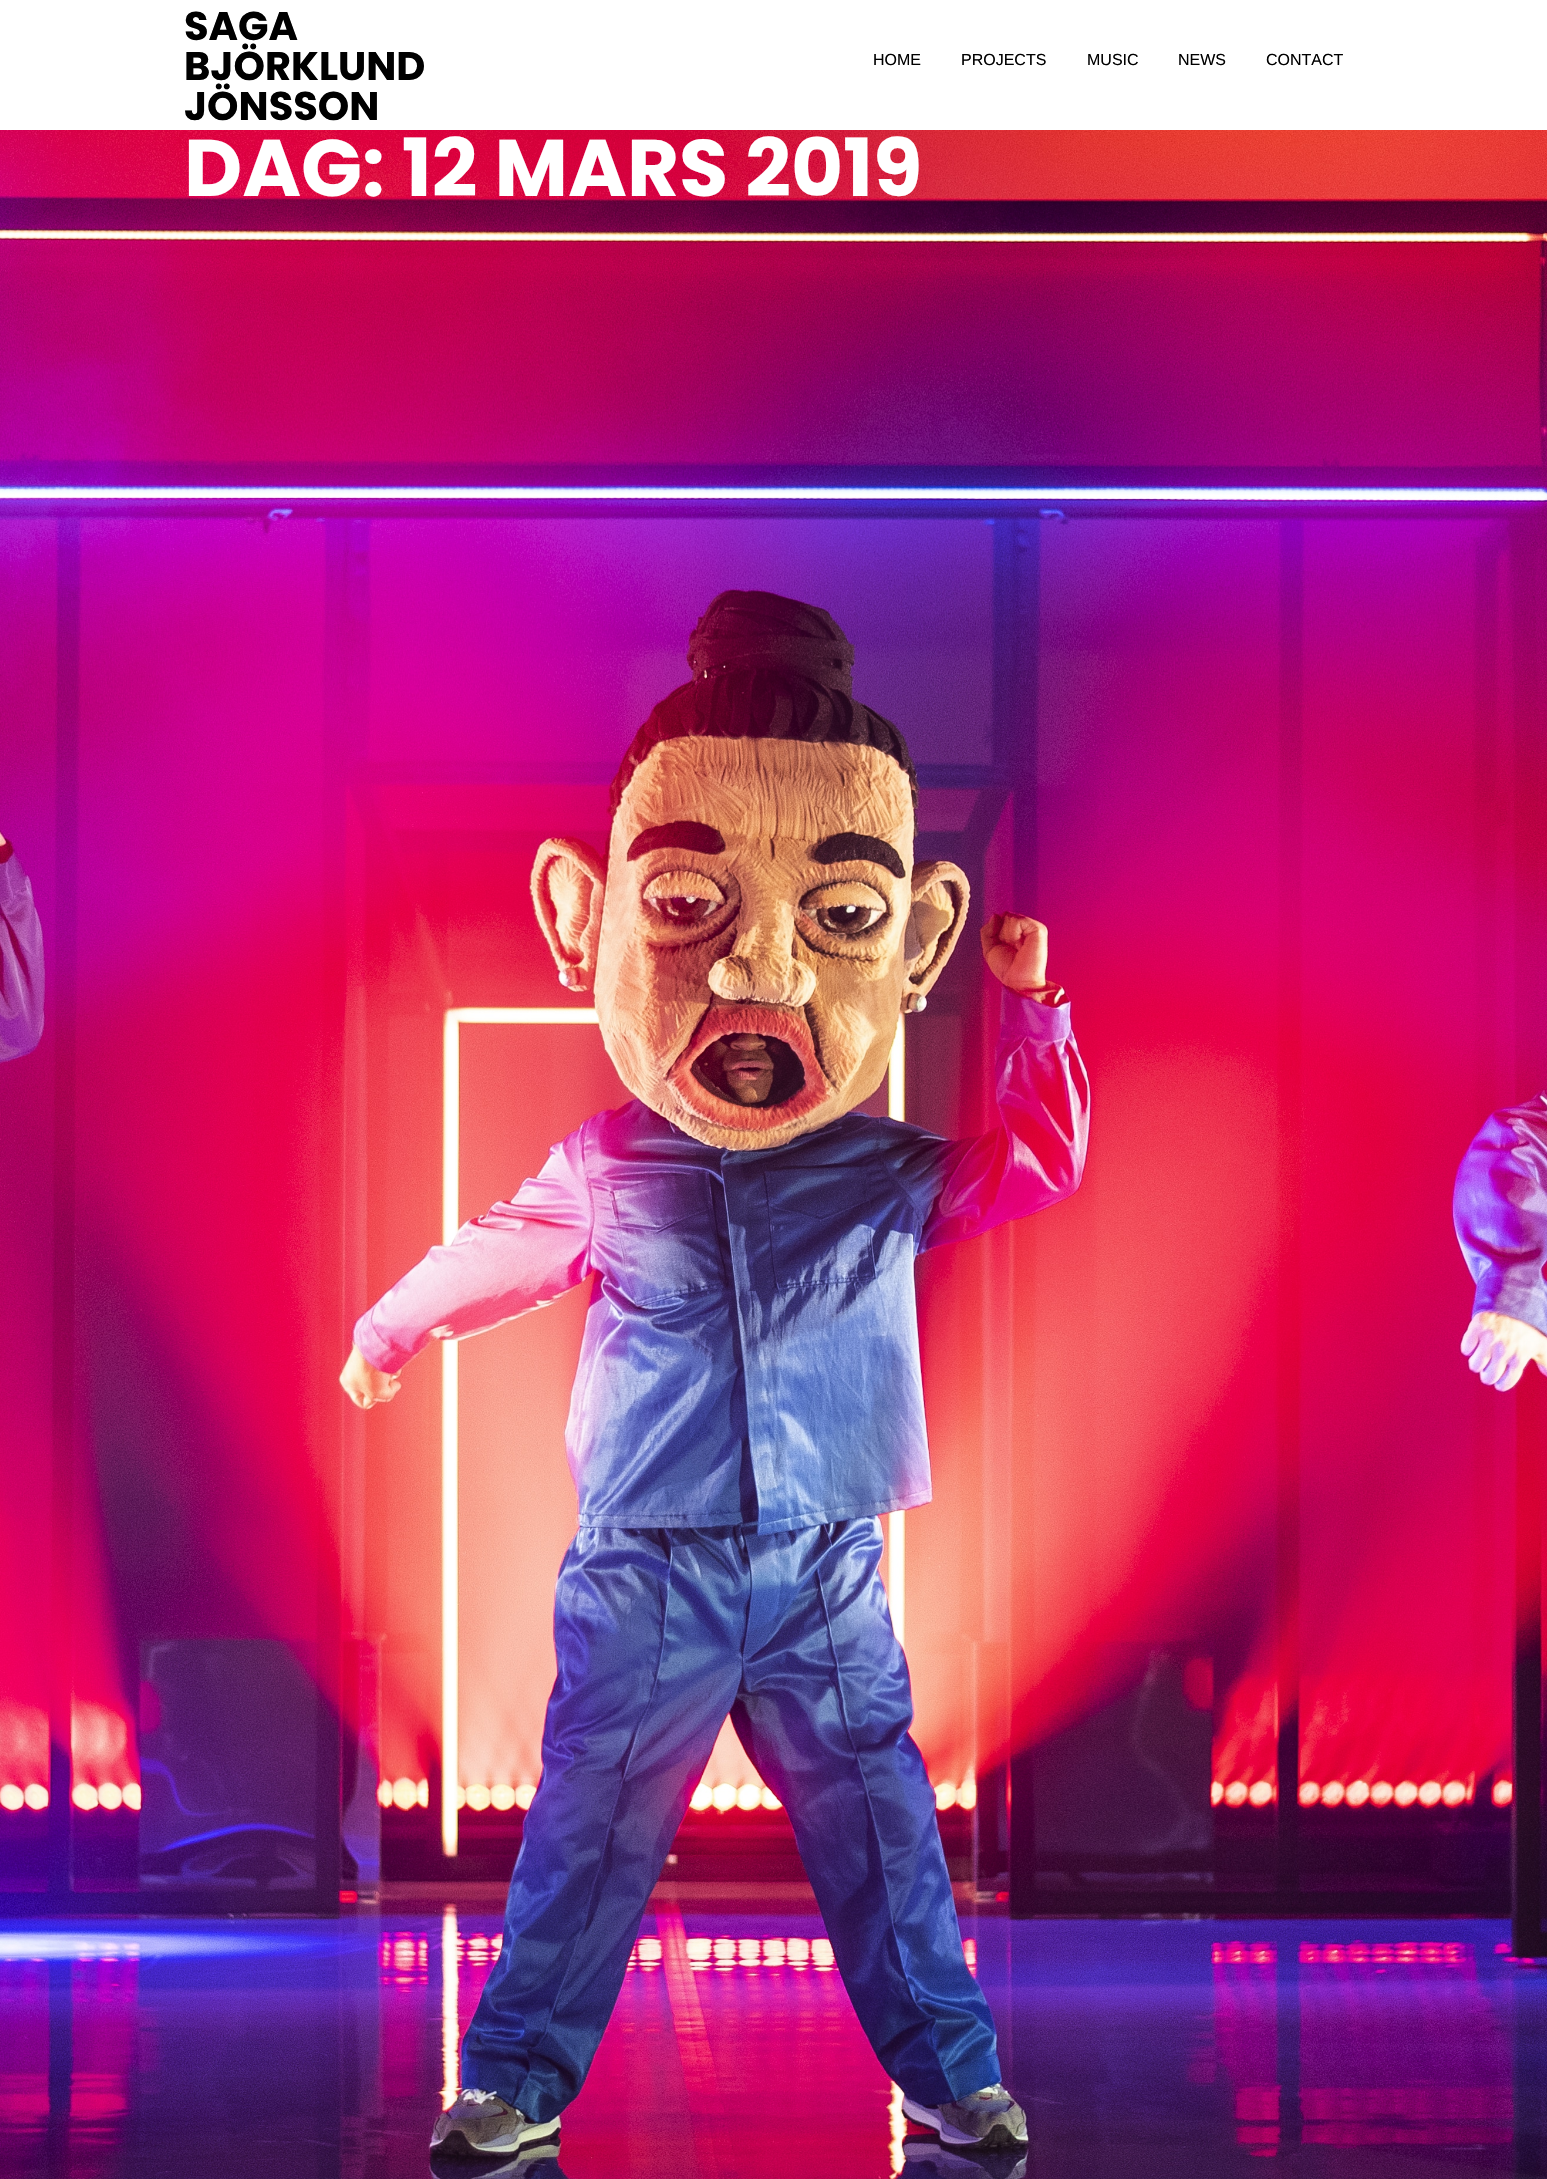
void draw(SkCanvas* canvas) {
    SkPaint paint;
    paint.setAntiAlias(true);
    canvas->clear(0xFFFFFFFF);
    SkFont font1(fontMgr->matchFamilyStyle("Poppins", SkFontStyle::Bold()), 40);
    font1.setSubpixel(true);
    paint.setColor(0xFF000000);
    canvas->drawString("SAGA", 184, 40, font1, paint);
    canvas->drawString("BJÖRKLUND", 184, 80, font1, paint);
    canvas->drawString("JÖNSSON", 184, 120, font1, paint);
    SkFont font2(fontMgr->matchFamilyStyle("Liberation Sans", SkFontStyle::Normal()), 16);
    font2.setSubpixel(true);
    canvas->drawString("HOME", 873, 65, font2, paint);
    canvas->drawString("PROJECTS", 961, 65, font2, paint);
    canvas->drawString("MUSIC", 1087, 65, font2, paint);
    canvas->drawString("NEWS", 1178, 65, font2, paint);
    canvas->drawString("CONTACT", 1266, 65, font2, paint);
    canvas->drawImageRect(SkImages::DeferredFromEncodedData(SkData::MakeFromFileName("img1.png")), SkRect::MakeXYWH(0, 130, 1547, 2049), SkSamplingOptions());
    SkFont font3(fontMgr->matchFamilyStyle("Poppins", SkFontStyle::Bold()), 80);
    font3.setSubpixel(true);
    paint.setColor(0xFFFFFFFF);
    canvas->drawString("DAG: 12 MARS 2019", 184, 196, font3, paint);
}
